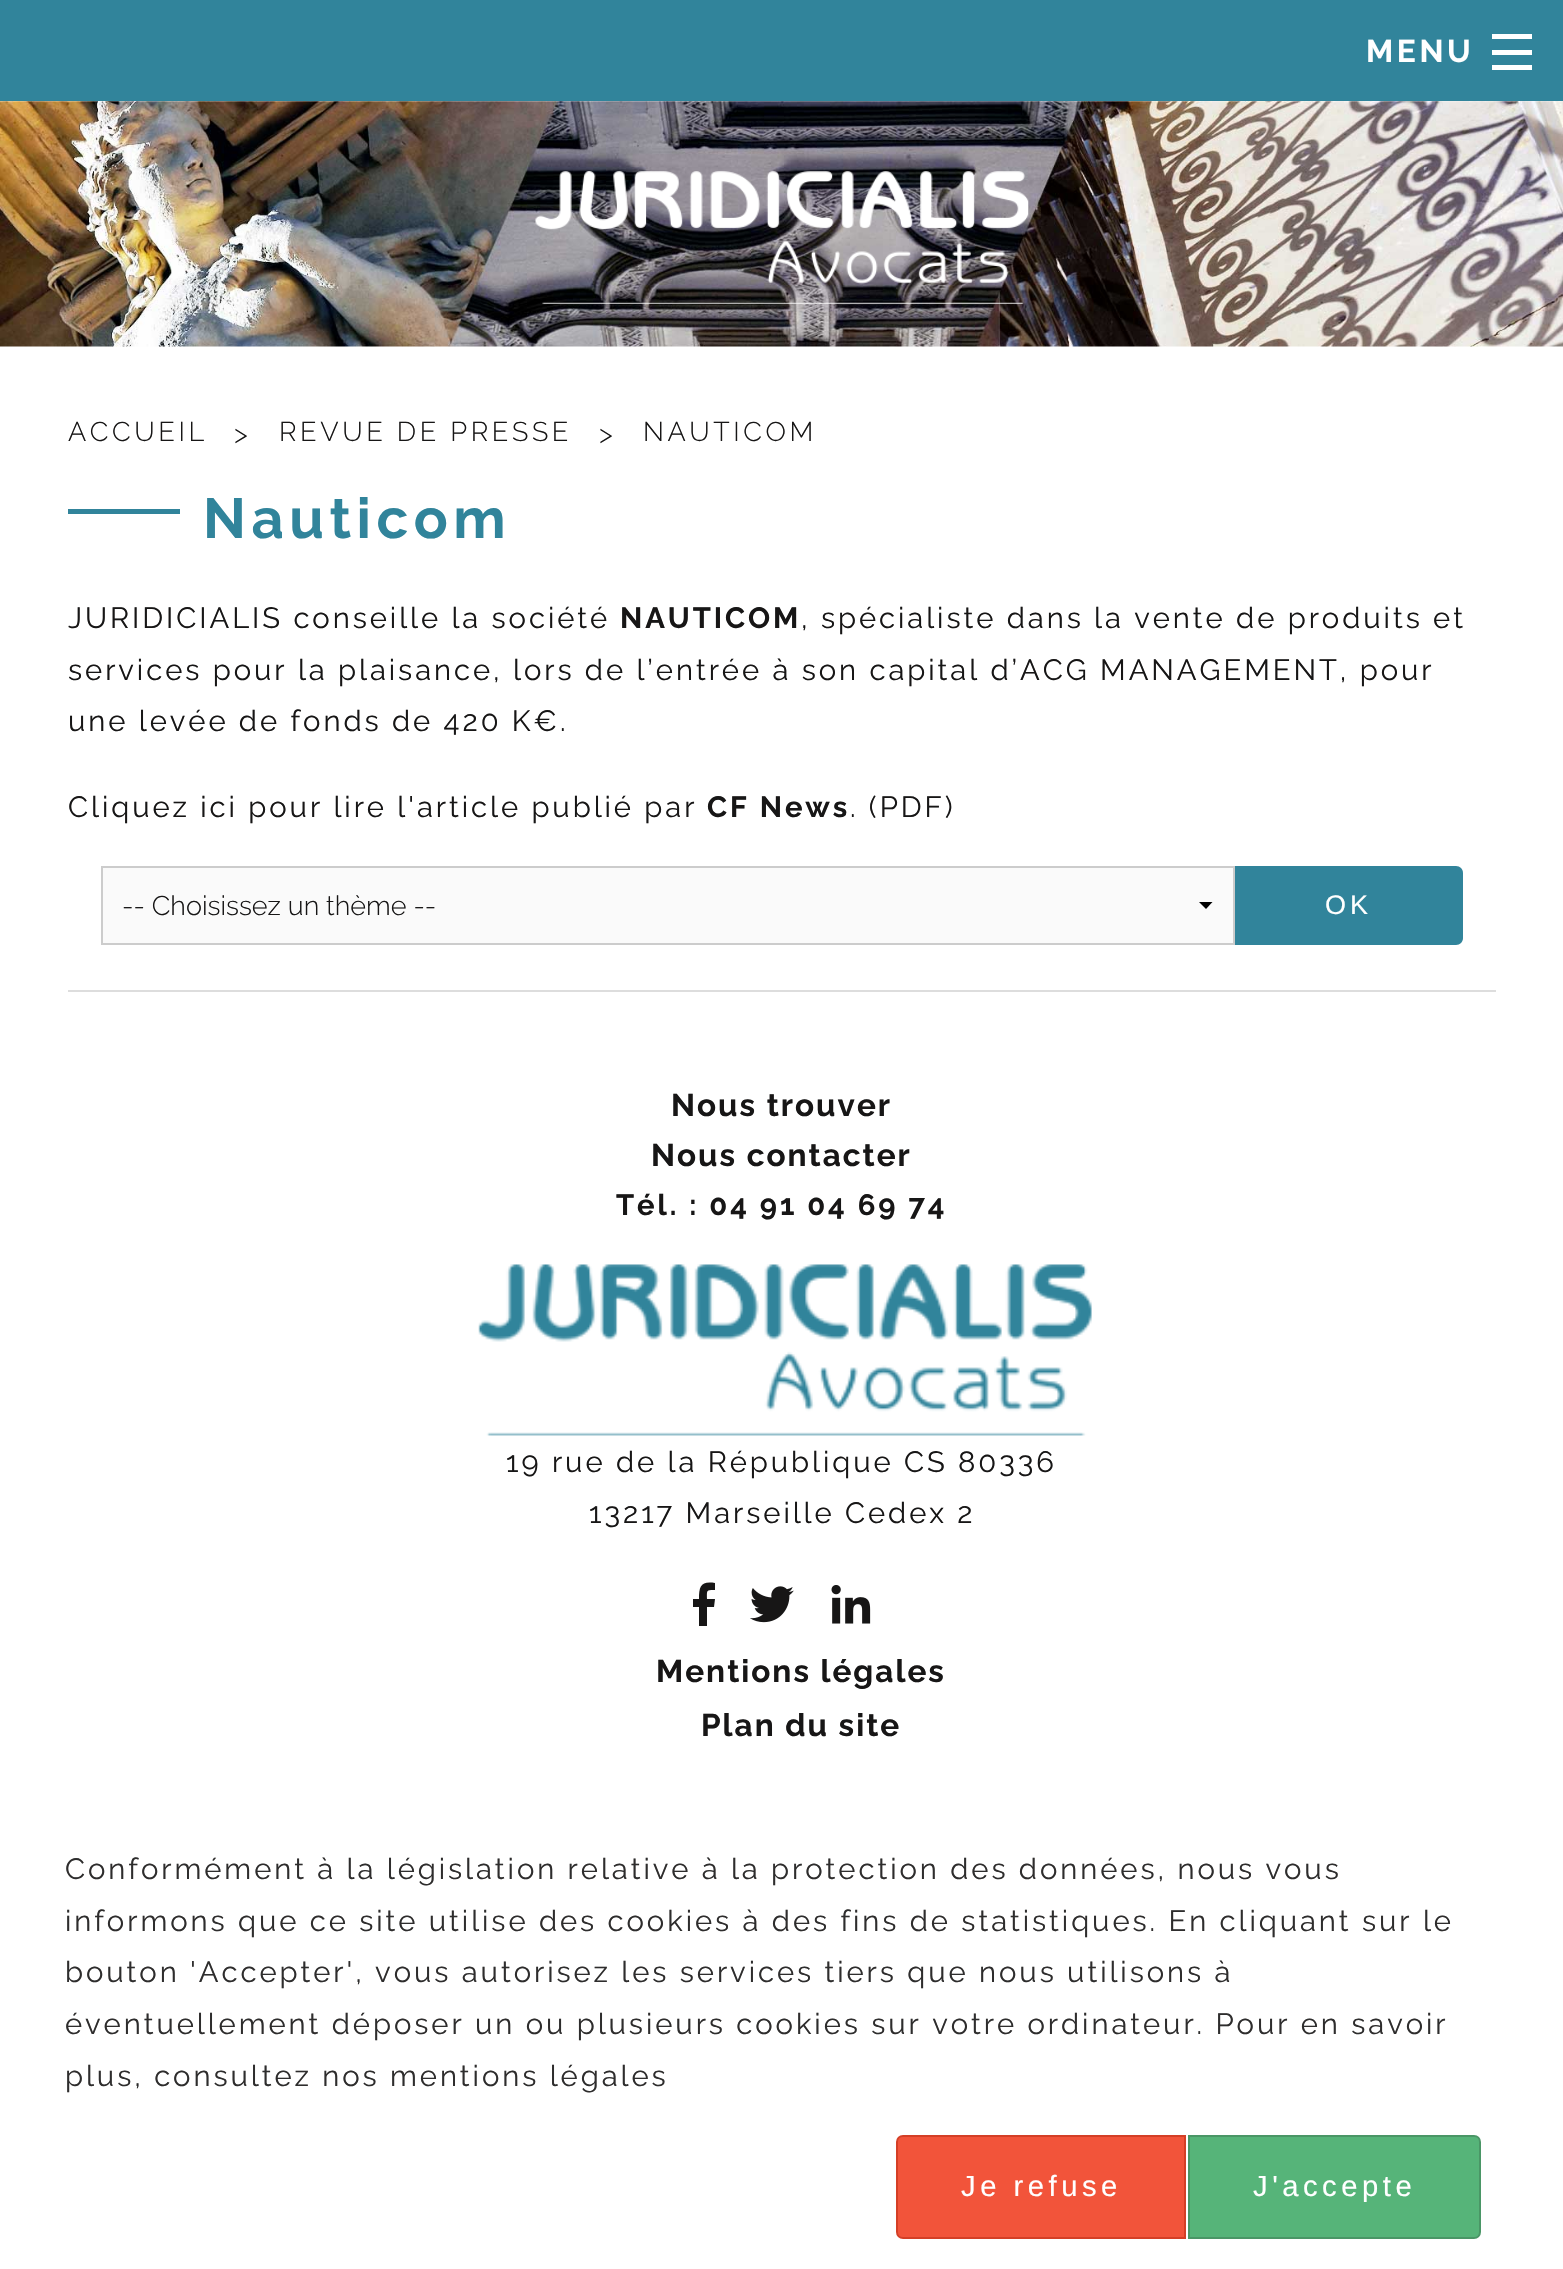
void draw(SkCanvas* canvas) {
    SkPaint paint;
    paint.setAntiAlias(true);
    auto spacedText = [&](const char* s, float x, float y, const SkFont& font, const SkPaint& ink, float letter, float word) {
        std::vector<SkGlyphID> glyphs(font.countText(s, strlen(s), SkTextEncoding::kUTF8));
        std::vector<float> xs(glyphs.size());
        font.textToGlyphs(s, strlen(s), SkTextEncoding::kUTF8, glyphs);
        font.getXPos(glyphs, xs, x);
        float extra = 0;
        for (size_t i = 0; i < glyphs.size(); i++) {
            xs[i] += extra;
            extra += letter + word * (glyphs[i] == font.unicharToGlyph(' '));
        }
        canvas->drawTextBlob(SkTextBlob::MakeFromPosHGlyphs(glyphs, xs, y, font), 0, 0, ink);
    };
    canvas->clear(0xFFFFFFFF);
    paint.setColor(0xFF31849B);
    canvas->drawRect(SkRect::MakeXYWH(0, 0, 1563, 101), paint);
    SkFont font1(fontMgr->matchFamilyStyle("Raleway", SkFontStyle::Bold()), 31.5f);
    font1.setSubpixel(true);
    paint.setColor(0xFFFFFFFF);
    spacedText("MENU", 1366, 62, font1, paint, 3.6f, 0);
    canvas->drawRect(SkRect::MakeXYWH(1492, 65, 40, 5), paint);
    canvas->drawRect(SkRect::MakeXYWH(1492, 50, 40, 5), paint);
    canvas->drawRect(SkRect::MakeXYWH(1492, 34, 40, 5), paint);
    canvas->drawImageRect(SkImages::DeferredFromEncodedData(SkData::MakeFromFileName("img1.png")), SkRect::MakeXYWH(0, 101, 1563, 246), SkSamplingOptions());
    canvas->drawImageRect(SkImages::DeferredFromEncodedData(SkData::MakeFromFileName("img2.png")), SkRect::MakeXYWH(535, 171, 494, 133), SkSamplingOptions());
    SkFont font2(fontMgr->matchFamilyStyle("Raleway", SkFontStyle(300, SkFontStyle::kNormal_Width, SkFontStyle::kUpright_Slant)), 27);
    font2.setSubpixel(true);
    paint.setColor(0xFF171616);
    spacedText("ACCUEIL", 68, 441, font2, paint, 3.6f, 0);
    spacedText(">", 234, 443, font2, paint, 3.6f, 0);
    spacedText("REVUE DE PRESSE", 279, 441, font2, paint, 3.6f, 0);
    spacedText(">", 599, 443, font2, paint, 3.6f, 0);
    spacedText("NAUTICOM", 643, 441, font2, paint, 3.6f, 0);
    paint.setColor(0xFF31849B);
    canvas->drawRect(SkRect::MakeXYWH(68, 509, 112, 5), paint);
    SkFont font3(fontMgr->matchFamilyStyle("Raleway", SkFontStyle::Bold()), 56.25f);
    font3.setSubpixel(true);
    spacedText("Nauticom", 203, 538, font3, paint, 5.5f, 0);
    SkFont font4(fontMgr->matchFamilyStyle("Raleway", SkFontStyle::Normal()), 29.25f);
    font4.setSubpixel(true);
    paint.setColor(0xFF171616);
    spacedText("JURIDICIALIS conseille la société", 68, 628, font4, paint, 2.93f, 0);
    SkFont font5(fontMgr->matchFamilyStyle("Raleway", SkFontStyle::Bold()), 29.25f);
    font5.setSubpixel(true);
    spacedText("NAUTICOM", 620, 628, font5, paint, 2.93f, 0);
    spacedText(", spécialiste dans la vente de produits et", 801, 628, font4, paint, 2.93f, 0);
    spacedText("services pour la plaisance, lors de l’entrée à son capital d’ACG MANAGEMENT, pour", 68, 680, font4, paint, 2.93f, 0);
    spacedText("une levée de fonds de 420 K€.", 68, 731, font4, paint, 2.93f, 0);
    spacedText("Cliquez ici pour lire l'article publié par", 68, 817, font4, paint, 2.93f, 0);
    spacedText("CF News", 707, 817, font5, paint, 2.93f, 0);
    spacedText(". (PDF)", 850, 817, font4, paint, 2.93f, 0);
    paint.setColor(0xFFFAFAFA);
    canvas->drawRect(SkRect::MakeXYWH(103, 868, 1130, 75), paint);
    paint.setColor(0xFF000000);
    canvas->drawPath(SkPathBuilder().moveTo(1212.5f, 902).lineTo(1206, 909).lineTo(1199, 902).close().detach(), paint);
    paint.setStyle(SkPaint::kStroke_Style);
    paint.setStrokeWidth(2);
    paint.setColor(0xFFCCCCCC);
    canvas->drawRect(SkRect::MakeXYWH(102, 867, 1132, 77), paint);
    paint.setStyle(SkPaint::kFill_Style);
    paint.setColor(0xFF171616);
    canvas->drawString("-- Choisissez un thème --", 122, 915, font2, paint);
    paint.setColor(0xFF31849B);
    canvas->drawPath(SkPathBuilder().moveTo(1235, 866).lineTo(1456, 866).cubicTo(1460, 866, 1463, 869, 1463, 873).lineTo(1463, 938).cubicTo(1463, 942, 1460, 945, 1456, 945).lineTo(1235, 945).close().detach(), paint);
    SkFont font6(fontMgr->matchFamilyStyle("Liberation Sans", SkFontStyle::Normal()), 27);
    font6.setSubpixel(true);
    paint.setColor(0xFFFFFFFF);
    spacedText("OK", 1325, 914, font6, paint, 4, 0);
    paint.setColor(0xFFDDDDDD);
    canvas->drawRect(SkRect::MakeXYWH(68, 990, 1428, 2), paint);
    paint.setColor(0xFF171616);
    spacedText("Nous trouver", 671, 1116, font1, paint, 2, 0);
    spacedText("Nous contacter", 651, 1166, font1, paint, 2, 0);
    spacedText("Tél. : 04 91 04 69 74", 616, 1215, font5, paint, 2.93f, 0);
    canvas->drawImageRect(SkImages::DeferredFromEncodedData(SkData::MakeFromFileName("img3.png")), SkRect::MakeXYWH(478, 1264, 614, 172), SkSamplingOptions());
    spacedText("19 rue de la République CS 80336", 506, 1472, font4, paint, 2.93f, 0);
    spacedText("13217 Marseille Cedex 2", 589, 1523, font4, paint, 2.93f, 0);
    canvas->drawPath(SkPathBuilder().moveTo(699, 1626).lineTo(699, 1607).lineTo(693, 1607).lineTo(693, 1599).lineTo(699, 1599).cubicTo(699, 1586, 701, 1581, 715, 1583).lineTo(715, 1590).cubicTo(706, 1590, 707, 1590, 707, 1599).lineTo(715, 1599).lineTo(714, 1607).lineTo(707, 1607).lineTo(707, 1626).detach(), paint);
    canvas->drawImageRect(SkImages::DeferredFromEncodedData(SkData::MakeFromFileName("img4.png")), SkRect::MakeXYWH(750, 1586, 44, 37), SkSamplingOptions());
    canvas->drawImageRect(SkImages::DeferredFromEncodedData(SkData::MakeFromFileName("img5.png")), SkRect::MakeXYWH(831, 1585, 40, 39), SkSamplingOptions());
    spacedText("Mentions légales", 656, 1682, font1, paint, 2, 0);
    spacedText("Plan du site", 701, 1736, font1, paint, 2, 0);
    paint.setColor(0xFF2E2D2D);
    spacedText("Conformément à la législation relative à la protection des données, nous vous", 65, 1879, font4, paint, 2.93f, 0);
    spacedText("informons que ce site utilise des cookies à des fins de statistiques. En cliquant sur le", 65, 1931, font4, paint, 2.93f, 0);
    spacedText("bouton 'Accepter', vous autorisez les services tiers que nous utilisons à", 65, 1982, font4, paint, 2.93f, 0);
    spacedText("éventuellement déposer un ou plusieurs cookies sur votre ordinateur. Pour en savoir", 65, 2034, font4, paint, 2.93f, 0);
    spacedText("plus, consultez nos mentions légales", 65, 2086, font4, paint, 2.93f, 0);
    paint.setColor(0xFFF2543A);
    canvas->drawPath(SkPathBuilder().moveTo(903, 2136).lineTo(1185, 2136).lineTo(1185, 2238).lineTo(903, 2238).cubicTo(899.5f, 2238, 897, 2235.5f, 897, 2232).lineTo(897, 2142).cubicTo(897, 2138.5f, 899.5f, 2136, 903, 2136).close().detach(), paint);
    paint.setStyle(SkPaint::kStroke_Style);
    paint.setColor(0xFFD43F26);
    canvas->drawPath(SkPathBuilder().moveTo(903, 2136).lineTo(1185, 2136).lineTo(1185, 2238).lineTo(903, 2238).cubicTo(899.5f, 2238, 897, 2235.5f, 897, 2232).lineTo(897, 2142).cubicTo(897, 2138.5f, 899.5f, 2136, 903, 2136).close().detach(), paint);
    SkFont font7(fontMgr->matchFamilyStyle("Liberation Sans", SkFontStyle::Normal()), 29.25f);
    font7.setSubpixel(true);
    paint.setStyle(SkPaint::kFill_Style);
    paint.setColor(0xFFFFFFFF);
    spacedText("Je refuse", 961, 2196, font7, paint, 4.5f, 0);
    paint.setColor(0xFF56B479);
    canvas->drawPath(SkPathBuilder().moveTo(1189, 2136).lineTo(1474, 2136).cubicTo(1477.5f, 2136, 1480, 2138.5f, 1480, 2142).lineTo(1480, 2232).cubicTo(1480, 2235.5f, 1477.5f, 2238, 1474, 2238).lineTo(1189, 2238).close().detach(), paint);
    paint.setStyle(SkPaint::kStroke_Style);
    paint.setColor(0xFF4A9666);
    canvas->drawPath(SkPathBuilder().moveTo(1189, 2136).lineTo(1474, 2136).cubicTo(1477.5f, 2136, 1480, 2138.5f, 1480, 2142).lineTo(1480, 2232).cubicTo(1480, 2235.5f, 1477.5f, 2238, 1474, 2238).lineTo(1189, 2238).close().detach(), paint);
    paint.setStyle(SkPaint::kFill_Style);
    paint.setColor(0xFFFFFFFF);
    spacedText("J'accepte", 1253, 2196, font7, paint, 4.5f, 0);
}
